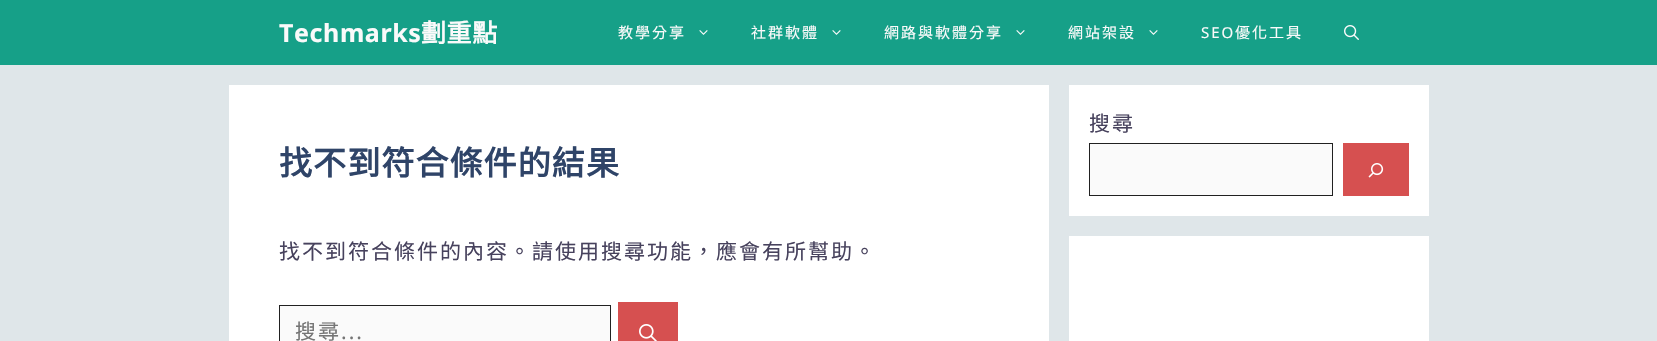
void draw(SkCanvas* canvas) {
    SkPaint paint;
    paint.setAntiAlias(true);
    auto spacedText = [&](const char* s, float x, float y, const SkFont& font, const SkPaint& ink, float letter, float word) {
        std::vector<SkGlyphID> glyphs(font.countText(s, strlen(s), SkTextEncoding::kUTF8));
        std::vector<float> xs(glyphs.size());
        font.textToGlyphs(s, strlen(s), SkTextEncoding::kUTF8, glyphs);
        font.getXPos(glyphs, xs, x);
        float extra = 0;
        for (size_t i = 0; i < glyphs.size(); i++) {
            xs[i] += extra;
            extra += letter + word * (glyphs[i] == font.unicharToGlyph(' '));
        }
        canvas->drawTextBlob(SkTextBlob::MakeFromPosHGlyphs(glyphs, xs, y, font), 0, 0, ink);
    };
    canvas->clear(0xFFDFE6E9);
    paint.setColor(0xFF16A088);
    canvas->drawRect(SkRect::MakeXYWH(0, 0, 1657, 65), paint);
    SkFont font1(fontMgr->matchFamilyStyle("Noto Sans", SkFontStyle::Bold()), 25);
    font1.setSubpixel(true);
    paint.setColor(0xFFFAFAFA);
    spacedText("Techmarks", 279, 42, font1, paint, 0.6f, 0);
    SkFont font2(fontMgr->matchFamilyStyle("Noto Sans CJK TC", SkFontStyle::Bold()), 25);
    font2.setSubpixel(true);
    spacedText("劃重點", 421, 42, font2, paint, 0.6f, 0);
    SkFont font3(fontMgr->matchFamilyStyle("Noto Sans CJK TC", SkFontStyle::Normal()), 15);
    font3.setSubpixel(true);
    spacedText("教學分享", 618, 38, font3, paint, 2, 0);
    canvas->drawImageRect(SkImages::DeferredFromEncodedData(SkData::MakeFromFileName("img1.png")), SkRect::MakeXYWH(699, 30, 9, 5), SkSamplingOptions());
    spacedText("社群軟體", 751, 38, font3, paint, 2, 0);
    canvas->drawImageRect(SkImages::DeferredFromEncodedData(SkData::MakeFromFileName("img1.png")), SkRect::MakeXYWH(832, 30, 9, 5), SkSamplingOptions());
    spacedText("網路與軟體分享", 884, 38, font3, paint, 2, 0);
    canvas->drawImageRect(SkImages::DeferredFromEncodedData(SkData::MakeFromFileName("img1.png")), SkRect::MakeXYWH(1016, 30, 9, 5), SkSamplingOptions());
    spacedText("網站架設", 1068, 38, font3, paint, 2, 0);
    canvas->drawImageRect(SkImages::DeferredFromEncodedData(SkData::MakeFromFileName("img1.png")), SkRect::MakeXYWH(1149, 30, 9, 5), SkSamplingOptions());
    SkFont font4(fontMgr->matchFamilyStyle("Noto Sans", SkFontStyle::Normal()), 15);
    font4.setSubpixel(true);
    spacedText("SEO", 1201, 38, font4, paint, 2, 0);
    spacedText("優化工具", 1235, 38, font3, paint, 2, 0);
    canvas->drawImageRect(SkImages::DeferredFromEncodedData(SkData::MakeFromFileName("img2.png")), SkRect::MakeXYWH(1344, 25, 15, 15), SkSamplingOptions());
    paint.setColor(0xFFFFFFFF);
    canvas->drawRect(SkRect::MakeXYWH(1069, 85, 360, 131), paint);
    SkFont font5(fontMgr->matchFamilyStyle("Noto Sans CJK TC", SkFontStyle::Normal()), 21);
    font5.setSubpixel(true);
    paint.setColor(0xFF47425D);
    spacedText("搜尋", 1089, 131, font5, paint, 2, 0);
    paint.setColor(0xFFFAFAFA);
    canvas->drawRect(SkRect::MakeXYWH(1089.5f, 143.5f, 243, 52), paint);
    paint.setStyle(SkPaint::kStroke_Style);
    paint.setStrokeWidth(1);
    paint.setColor(0xFF212121);
    canvas->drawRect(SkRect::MakeXYWH(1089.5f, 143.5f, 243, 52), paint);
    paint.setStyle(SkPaint::kFill_Style);
    paint.setColor(0xFFD65050);
    canvas->drawRect(SkRect::MakeXYWH(1343, 143, 66, 53), paint);
    canvas->drawImageRect(SkImages::DeferredFromEncodedData(SkData::MakeFromFileName("img3.png")), SkRect::MakeXYWH(1368, 163, 16, 15), SkSamplingOptions());
    paint.setColor(0xFFFFFFFF);
    canvas->drawRect(SkRect::MakeXYWH(1069, 236, 360, 105), paint);
    canvas->drawRect(SkRect::MakeXYWH(229, 85, 820, 256), paint);
    SkFont font6(fontMgr->matchFamilyStyle("Noto Sans CJK TC", SkFontStyle::Bold()), 33);
    font6.setSubpixel(true);
    paint.setColor(0xFF2F4468);
    spacedText("找不到符合條件的結果", 279, 175, font6, paint, 1.1f, 0);
    paint.setColor(0xFF47425D);
    spacedText("找不到符合條件的內容。請使用搜尋功能，應會有所幫助。", 279, 259, font5, paint, 2, 0);
    paint.setColor(0xFFFAFAFA);
    canvas->drawRect(SkRect::MakeXYWH(279.5f, 305.5f, 331, 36), paint);
    paint.setStyle(SkPaint::kStroke_Style);
    paint.setColor(0xFF212121);
    canvas->drawRect(SkRect::MakeXYWH(279.5f, 305.5f, 331, 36), paint);
    paint.setStyle(SkPaint::kFill_Style);
    paint.setColor(0xFF757575);
    spacedText("搜尋", 295, 339, font5, paint, 2, 0);
    SkFont font7(fontMgr->matchFamilyStyle("Noto Sans", SkFontStyle::Normal()), 21);
    font7.setSubpixel(true);
    spacedText("...", 341, 339, font7, paint, 2, 0);
    paint.setColor(0xFFD65050);
    canvas->drawRect(SkRect::MakeXYWH(618, 302, 60, 39), paint);
    canvas->drawImageRect(SkImages::DeferredFromEncodedData(SkData::MakeFromFileName("img4.png")), SkRect::MakeXYWH(639, 324, 18, 17), SkSamplingOptions());
}
